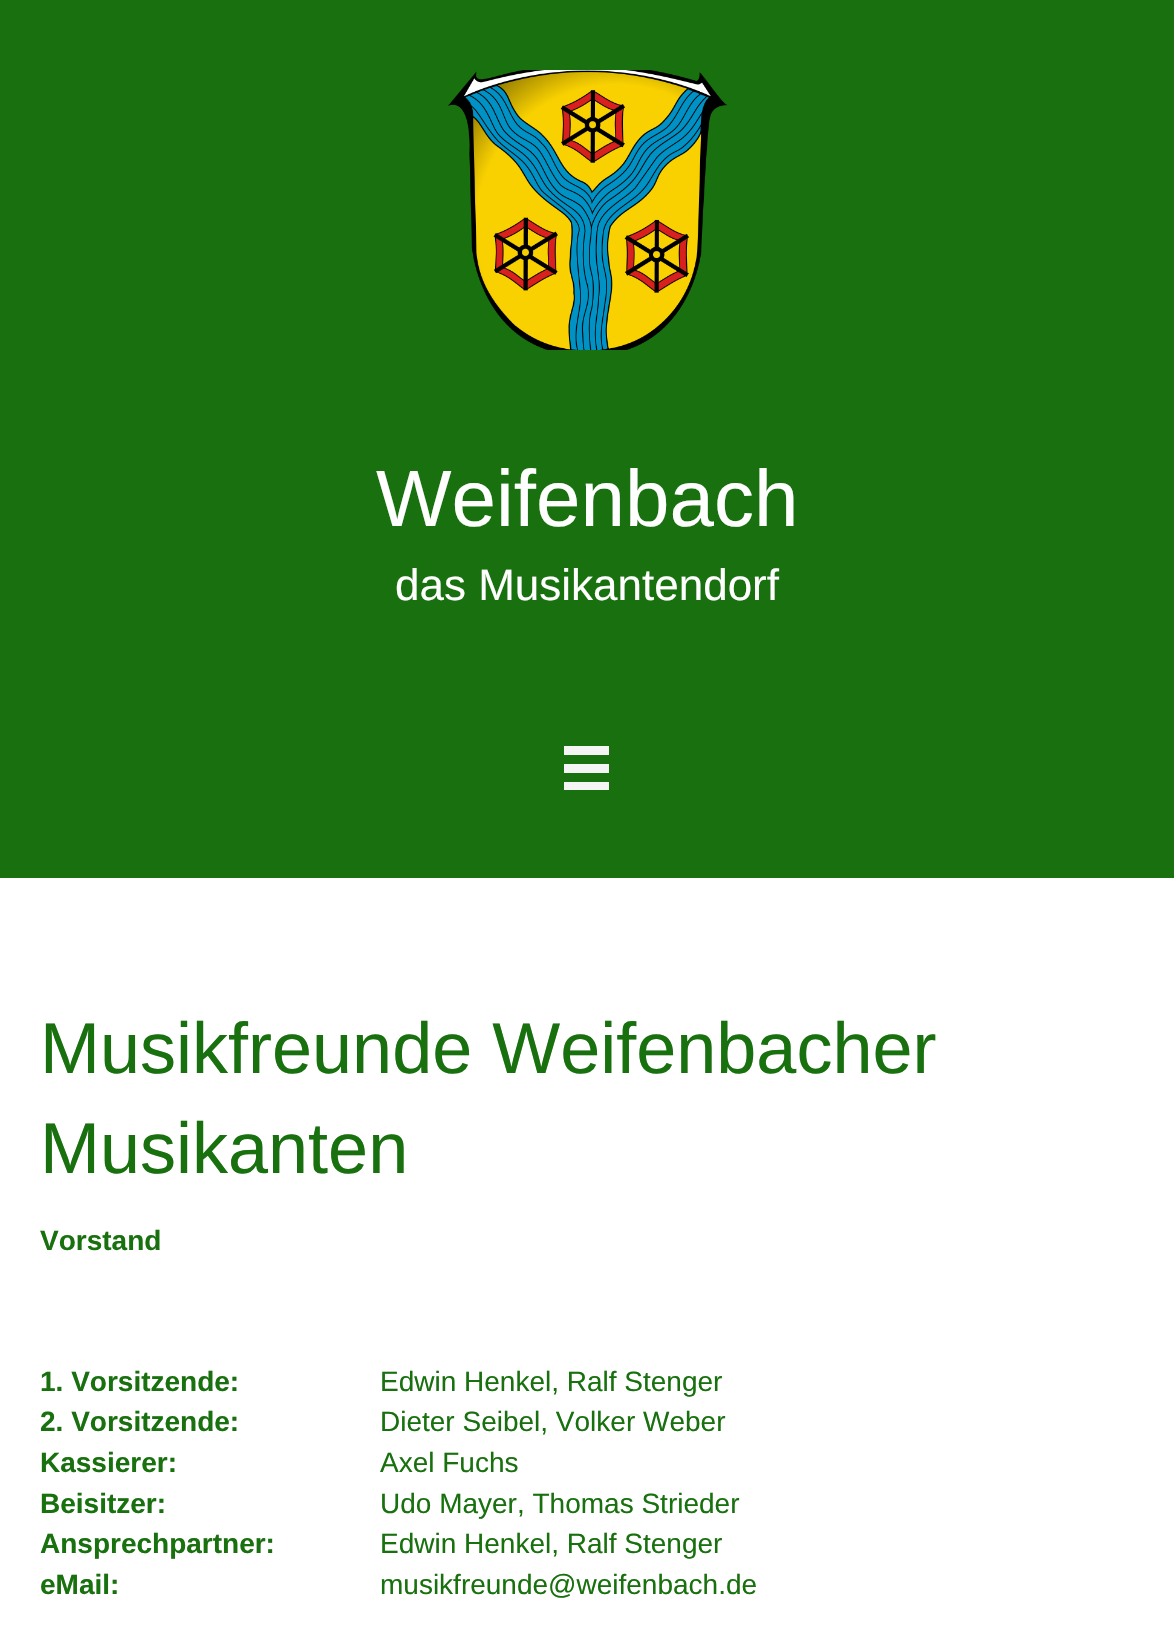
void draw(SkCanvas* canvas) {
    SkPaint paint;
    paint.setAntiAlias(true);
    canvas->clear(0xFFFFFFFF);
    paint.setColor(0xFF18700E);
    canvas->drawRect(SkRect::MakeXYWH(0, 0, 1174, 878), paint);
    canvas->drawImageRect(SkImages::DeferredFromEncodedData(SkData::MakeFromFileName("img1.png")), SkRect::MakeXYWH(448, 70, 280, 280), SkSamplingOptions());
    SkFont font1(fontMgr->matchFamilyStyle("Liberation Sans", SkFontStyle::Normal()), 80);
    font1.setSubpixel(true);
    paint.setColor(0xFFFFFFFF);
    canvas->drawString("Weifenbach", 376, 526, font1, paint);
    SkFont font2(fontMgr->matchFamilyStyle("Liberation Sans", SkFontStyle::Normal()), 44);
    font2.setSubpixel(true);
    canvas->drawString("das Musikantendorf", 395, 600, font2, paint);
    paint.setColor(0xFFF5F5F5);
    canvas->drawRect(SkRect::MakeXYWH(564, 746, 45, 9), paint);
    canvas->drawRect(SkRect::MakeXYWH(564, 764, 45, 9), paint);
    canvas->drawRect(SkRect::MakeXYWH(564, 782, 45, 8), paint);
    SkFont font3(fontMgr->matchFamilyStyle("Liberation Sans", SkFontStyle::Normal()), 72);
    font3.setSubpixel(true);
    paint.setColor(0xFF18700E);
    canvas->drawString("Musikfreunde Weifenbacher", 40, 1073, font3, paint);
    canvas->drawString("Musikanten", 40, 1173, font3, paint);
    SkFont font4(fontMgr->matchFamilyStyle("Liberation Sans", SkFontStyle::Bold()), 28);
    font4.setSubpixel(true);
    canvas->drawString("Vorstand", 40, 1250, font4, paint);
    canvas->drawString("1. Vorsitzende:", 40, 1391, font4, paint);
    SkFont font5(fontMgr->matchFamilyStyle("Liberation Sans", SkFontStyle::Normal()), 28);
    font5.setSubpixel(true);
    canvas->drawString("Edwin Henkel, Ralf Stenger", 380, 1391, font5, paint);
    canvas->drawString("2. Vorsitzende:", 40, 1431, font4, paint);
    canvas->drawString("Dieter Seibel, Volker Weber", 380, 1431, font5, paint);
    canvas->drawString("Kassierer:", 40, 1472, font4, paint);
    canvas->drawString("Axel Fuchs", 380, 1472, font5, paint);
    canvas->drawString("Beisitzer:", 40, 1513, font4, paint);
    canvas->drawString("Udo Mayer, Thomas Strieder", 380, 1513, font5, paint);
    canvas->drawString("Ansprechpartner:", 40, 1553, font4, paint);
    canvas->drawString("Edwin Henkel, Ralf Stenger", 380, 1553, font5, paint);
    canvas->drawString("eMail:", 40, 1594, font4, paint);
    canvas->drawString("musikfreunde@weifenbach.de", 380, 1594, font5, paint);
}
